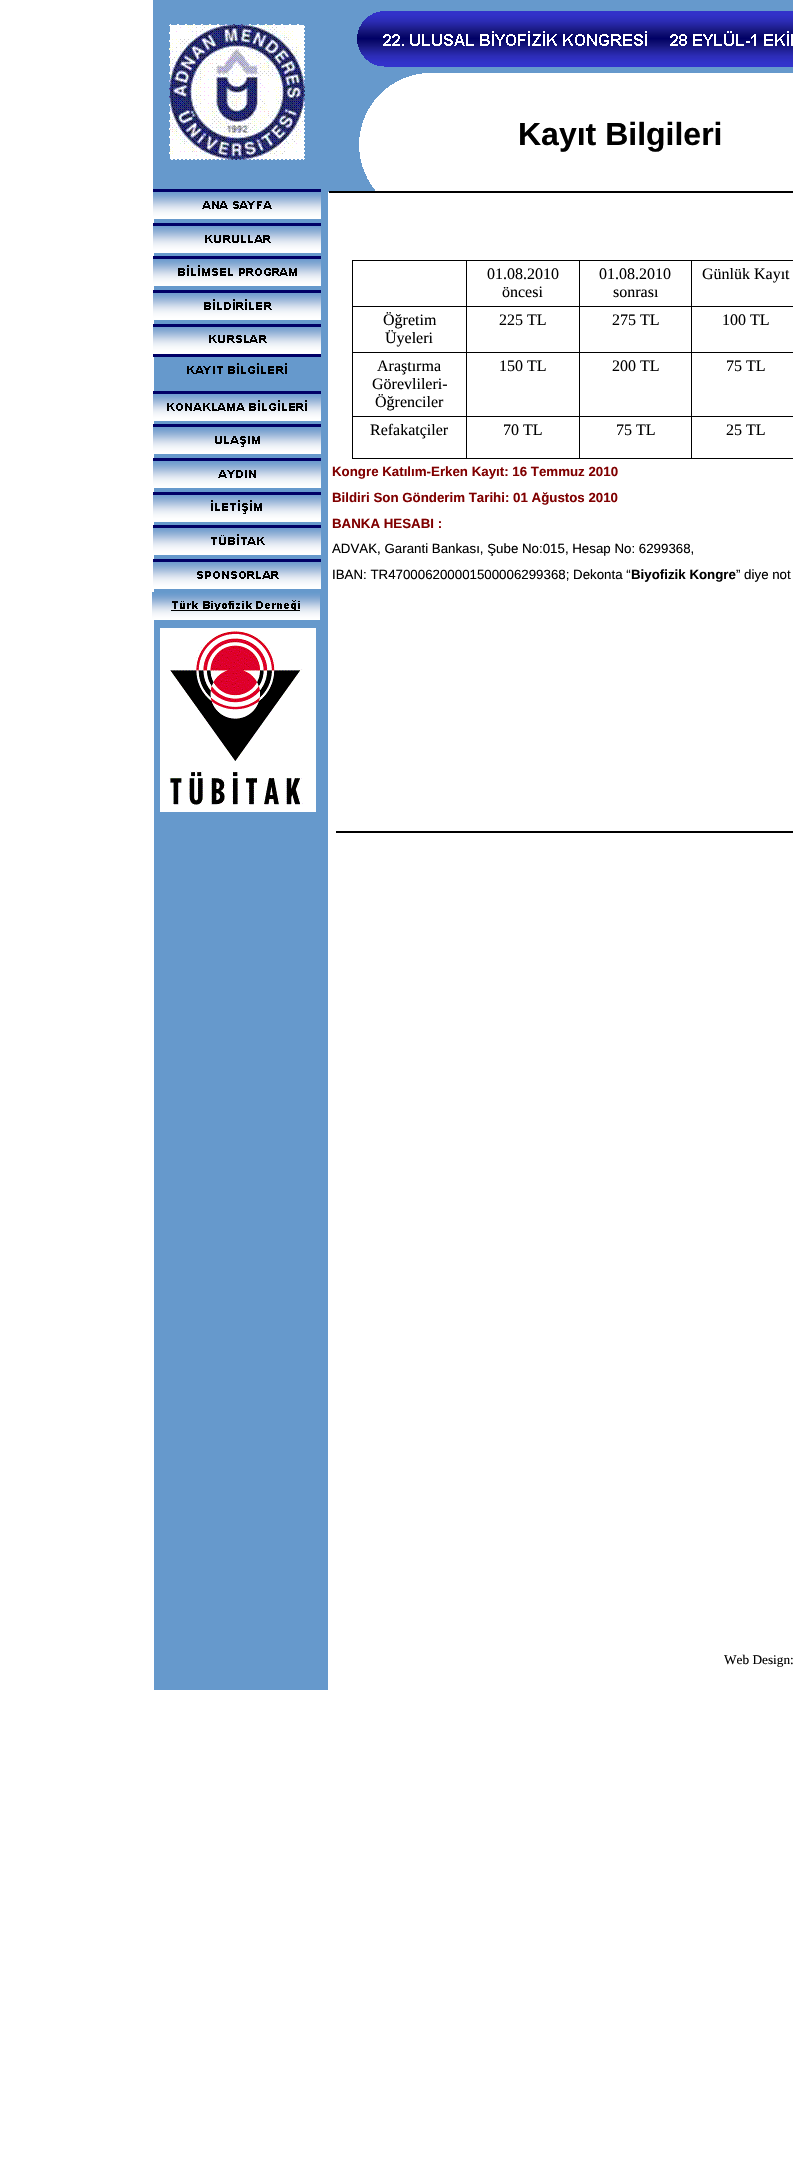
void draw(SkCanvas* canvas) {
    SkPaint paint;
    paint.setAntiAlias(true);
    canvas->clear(0xFFFFFFFF);
    paint.setColor(0xFF6699CC);
    canvas->drawRect(SkRect::MakeXYWH(153, 0, 640, 192), paint);
    canvas->drawImageRect(SkImages::DeferredFromEncodedData(SkData::MakeFromFileName("img1.png")), SkRect::MakeXYWH(169, 24, 136, 136), SkSamplingOptions());
    canvas->drawImageRect(SkImages::DeferredFromEncodedData(SkData::MakeFromFileName("img2.png")), SkRect::MakeXYWH(357, 11, 436, 56), SkSamplingOptions());
    canvas->drawImageRect(SkImages::DeferredFromEncodedData(SkData::MakeFromFileName("img3.png")), SkRect::MakeXYWH(359, 73, 434, 118), SkSamplingOptions());
    SkFont font1(fontMgr->matchFamilyStyle("Liberation Sans", SkFontStyle::Bold()), 32);
    font1.setSubpixel(true);
    paint.setColor(0xFF000000);
    canvas->drawString("Kayıt Bilgileri", 518, 145, font1, paint);
    paint.setColor(0xFF6699CC);
    canvas->drawRect(SkRect::MakeXYWH(154, 192, 174, 1498), paint);
    canvas->drawImageRect(SkImages::DeferredFromEncodedData(SkData::MakeFromFileName("img4.png")), SkRect::MakeXYWH(153, 189, 168, 400), SkSamplingOptions());
    paint.setColor(0xFF000000);
    canvas->drawRect(SkRect::MakeXYWH(329, 191, 464, 2), paint);
    canvas->drawRect(SkRect::MakeXYWH(691, 260, 102, 1), paint);
    canvas->drawRect(SkRect::MakeXYWH(691, 306, 102, 1), paint);
    canvas->drawRect(SkRect::MakeXYWH(691, 352, 102, 1), paint);
    canvas->drawRect(SkRect::MakeXYWH(691, 416, 102, 1), paint);
    canvas->drawRect(SkRect::MakeXYWH(691, 458, 102, 1), paint);
    canvas->drawRect(SkRect::MakeXYWH(691, 416, 1, 43), paint);
    canvas->drawRect(SkRect::MakeXYWH(579, 416, 113, 1), paint);
    canvas->drawRect(SkRect::MakeXYWH(691, 352, 1, 65), paint);
    canvas->drawRect(SkRect::MakeXYWH(579, 352, 113, 1), paint);
    canvas->drawRect(SkRect::MakeXYWH(691, 306, 1, 47), paint);
    canvas->drawRect(SkRect::MakeXYWH(579, 306, 113, 1), paint);
    canvas->drawRect(SkRect::MakeXYWH(691, 260, 1, 47), paint);
    canvas->drawRect(SkRect::MakeXYWH(579, 260, 113, 1), paint);
    canvas->drawRect(SkRect::MakeXYWH(579, 458, 113, 1), paint);
    canvas->drawRect(SkRect::MakeXYWH(579, 416, 1, 43), paint);
    canvas->drawRect(SkRect::MakeXYWH(466, 416, 114, 1), paint);
    canvas->drawRect(SkRect::MakeXYWH(579, 352, 1, 65), paint);
    canvas->drawRect(SkRect::MakeXYWH(466, 352, 114, 1), paint);
    canvas->drawRect(SkRect::MakeXYWH(579, 306, 1, 47), paint);
    canvas->drawRect(SkRect::MakeXYWH(466, 306, 114, 1), paint);
    canvas->drawRect(SkRect::MakeXYWH(579, 260, 1, 47), paint);
    canvas->drawRect(SkRect::MakeXYWH(466, 260, 114, 1), paint);
    canvas->drawRect(SkRect::MakeXYWH(466, 458, 114, 1), paint);
    canvas->drawRect(SkRect::MakeXYWH(466, 416, 1, 43), paint);
    canvas->drawRect(SkRect::MakeXYWH(352, 416, 115, 1), paint);
    canvas->drawRect(SkRect::MakeXYWH(466, 352, 1, 65), paint);
    canvas->drawRect(SkRect::MakeXYWH(352, 352, 115, 1), paint);
    canvas->drawRect(SkRect::MakeXYWH(466, 306, 1, 47), paint);
    canvas->drawRect(SkRect::MakeXYWH(352, 306, 115, 1), paint);
    canvas->drawRect(SkRect::MakeXYWH(466, 260, 1, 47), paint);
    canvas->drawRect(SkRect::MakeXYWH(352, 260, 115, 1), paint);
    canvas->drawRect(SkRect::MakeXYWH(352, 458, 115, 1), paint);
    canvas->drawRect(SkRect::MakeXYWH(352, 416, 1, 43), paint);
    canvas->drawRect(SkRect::MakeXYWH(352, 352, 1, 65), paint);
    canvas->drawRect(SkRect::MakeXYWH(352, 306, 1, 47), paint);
    canvas->drawRect(SkRect::MakeXYWH(352, 260, 1, 47), paint);
    SkFont font2(fontMgr->matchFamilyStyle("Liberation Serif", SkFontStyle::Normal()), 16);
    font2.setSubpixel(true);
    canvas->drawString("01.08.2010", 487, 279, font2, paint);
    canvas->drawString("öncesi", 502, 297, font2, paint);
    canvas->drawString("01.08.2010", 599, 279, font2, paint);
    canvas->drawString("sonrası", 613, 297, font2, paint);
    canvas->drawString("Günlük Kayıt", 702, 279, font2, paint);
    canvas->drawString("Öğretim", 383, 325, font2, paint);
    canvas->drawString("Üyeleri", 385, 343, font2, paint);
    canvas->drawString("225 TL", 499, 325, font2, paint);
    canvas->drawString("275 TL", 612, 325, font2, paint);
    canvas->drawString("100 TL", 722, 325, font2, paint);
    canvas->drawString("Araştırma", 377, 371, font2, paint);
    canvas->drawString("Görevlileri-", 372, 389, font2, paint);
    canvas->drawString("Öğrenciler", 375, 407, font2, paint);
    canvas->drawString("150 TL", 499, 371, font2, paint);
    canvas->drawString("200 TL", 612, 371, font2, paint);
    canvas->drawString("75 TL", 726, 371, font2, paint);
    canvas->drawString("Refakatçiler", 370, 435, font2, paint);
    canvas->drawString("70 TL", 503, 435, font2, paint);
    canvas->drawString("75 TL", 616, 435, font2, paint);
    canvas->drawString("25 TL", 726, 435, font2, paint);
    SkFont font3(fontMgr->matchFamilyStyle("Liberation Sans", SkFontStyle::Bold()), 13.3f);
    font3.setSubpixel(true);
    paint.setColor(0xFF800000);
    canvas->drawString("Kongre Katılım-Erken Kayıt: 16 Temmuz 2010", 332, 476, font3, paint);
    canvas->drawString("Bildiri Son Gönderim Tarihi: 01 Ağustos 2010", 332, 502, font3, paint);
    canvas->drawString("BANKA HESABI :", 332, 528, font3, paint);
    SkFont font4(fontMgr->matchFamilyStyle("Liberation Sans", SkFontStyle::Normal()), 13.3f);
    font4.setSubpixel(true);
    paint.setColor(0xFF000000);
    canvas->drawString("ADVAK, Garanti Bankası, Şube No:015, Hesap No: 6299368,", 332, 553, font4, paint);
    canvas->drawString("IBAN: TR470006200001500006299368; Dekonta “", 332, 579, font4, paint);
    canvas->drawString("Biyofizik Kongre", 631, 579, font3, paint);
    canvas->drawString("” diye not", 736, 579, font4, paint);
    canvas->drawImageRect(SkImages::DeferredFromEncodedData(SkData::MakeFromFileName("img5.png")), SkRect::MakeXYWH(152, 592, 168, 28), SkSamplingOptions());
    canvas->drawImageRect(SkImages::DeferredFromEncodedData(SkData::MakeFromFileName("img6.png")), SkRect::MakeXYWH(160, 628, 156, 184), SkSamplingOptions());
    canvas->drawRect(SkRect::MakeXYWH(336, 831, 457, 2), paint);
    SkFont font5(fontMgr->matchFamilyStyle("Liberation Serif", SkFontStyle::Normal()), 13.3f);
    font5.setSubpixel(true);
    canvas->drawString("Web Design:", 724, 1664, font5, paint);
}
